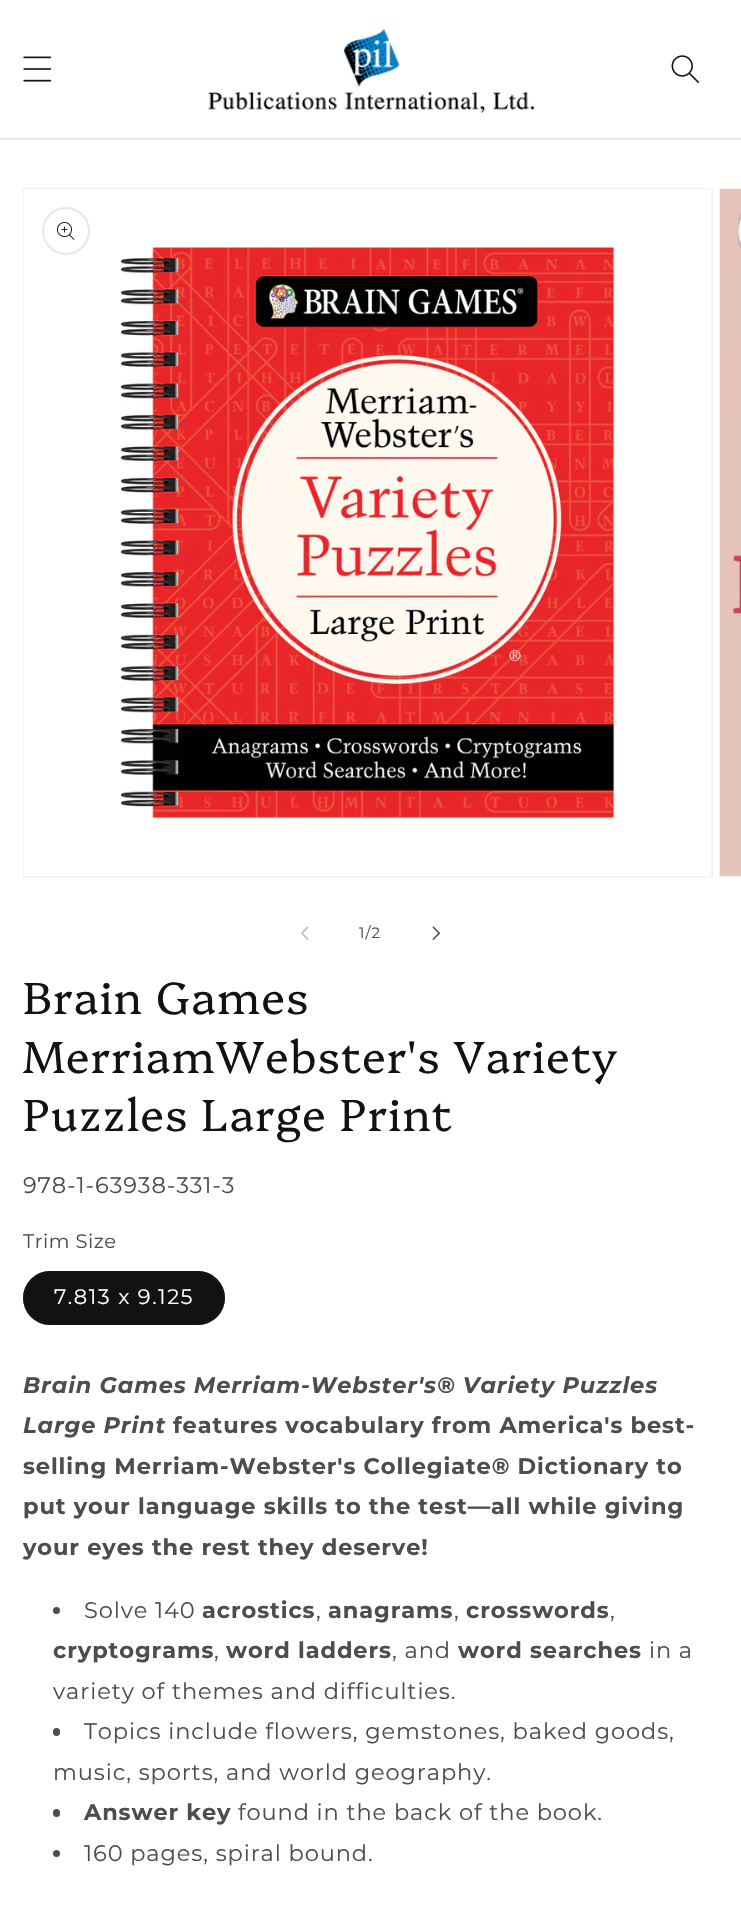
void draw(SkCanvas* canvas) {
    SkPaint paint;
    paint.setAntiAlias(true);
    auto spacedText = [&](const char* s, float x, float y, const SkFont& font, const SkPaint& ink, float letter, float word) {
        std::vector<SkGlyphID> glyphs(font.countText(s, strlen(s), SkTextEncoding::kUTF8));
        std::vector<float> xs(glyphs.size());
        font.textToGlyphs(s, strlen(s), SkTextEncoding::kUTF8, glyphs);
        font.getXPos(glyphs, xs, x);
        float extra = 0;
        for (size_t i = 0; i < glyphs.size(); i++) {
            xs[i] += extra;
            extra += letter + word * (glyphs[i] == font.unicharToGlyph(' '));
        }
        canvas->drawTextBlob(SkTextBlob::MakeFromPosHGlyphs(glyphs, xs, y, font), 0, 0, ink);
    };
    canvas->clear(0xFFFFFFFF);
    paint.setColor(0xFFECECEC);
    canvas->drawRect(SkRect::MakeXYWH(0, 138, 741, 2), paint);
    canvas->drawImageRect(SkImages::DeferredFromEncodedData(SkData::MakeFromFileName("img1.png")), SkRect::MakeXYWH(23, 56, 29, 26), SkSamplingOptions());
    canvas->drawImageRect(SkImages::DeferredFromEncodedData(SkData::MakeFromFileName("img2.png")), SkRect::MakeXYWH(208, 28, 326, 85), SkSamplingOptions());
    canvas->drawImageRect(SkImages::DeferredFromEncodedData(SkData::MakeFromFileName("img3.png")), SkRect::MakeXYWH(671, 55, 28, 28), SkSamplingOptions());
    paint.setStyle(SkPaint::kStroke_Style);
    paint.setStrokeWidth(2);
    paint.setColor(0xFFF3F3F3);
    canvas->drawRect(SkRect::MakeXYWH(24, 189, 688, 688), paint);
    canvas->drawImageRect(SkImages::DeferredFromEncodedData(SkData::MakeFromFileName("img4.png")), SkRect::MakeXYWH(24, 189, 687, 687), SkSamplingOptions());
    paint.setColor(0xFFE7E7E7);
    canvas->drawCircle(66, 231, 23, paint);
    canvas->drawImageRect(SkImages::DeferredFromEncodedData(SkData::MakeFromFileName("img5.png")), SkRect::MakeXYWH(57, 222, 18, 18), SkSamplingOptions());
    paint.setColor(0xFFF3F3F3);
    canvas->drawRect(SkRect::MakeXYWH(720, 189, 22, 688), paint);
    canvas->drawImageRect(SkImages::DeferredFromEncodedData(SkData::MakeFromFileName("img6.png")), SkRect::MakeXYWH(720, 189, 21, 687), SkSamplingOptions());
    paint.setStyle(SkPaint::kFill_Style);
    paint.setColor(0xFFFFFFFF);
    canvas->drawPath(SkPathBuilder().moveTo(762, 207).lineTo(741, 207).lineTo(741, 255).lineTo(762, 255).cubicTo(748.5f, 255, 738, 244.5f, 738, 231).cubicTo(738, 217.5f, 748.5f, 207, 762, 207).close().detach(), paint);
    paint.setStyle(SkPaint::kStroke_Style);
    paint.setColor(0x1A121212);
    canvas->drawRoundRect(SkRect::MakeXYWH(739, 208, 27, 46), 23, 23, paint);
    canvas->drawImageRect(SkImages::DeferredFromEncodedData(SkData::MakeFromFileName("img7.png")), SkRect::MakeXYWH(301, 926, 8, 14), SkSamplingOptions());
    SkFont font1(fontMgr->matchFamilyStyle("Montserrat", SkFontStyle::Normal()), 15);
    font1.setSubpixel(true);
    paint.setStyle(SkPaint::kFill_Style);
    paint.setColor(0xFF4D4D4D);
    spacedText("1/2", 359, 938, font1, paint, 1, 0);
    canvas->drawImageRect(SkImages::DeferredFromEncodedData(SkData::MakeFromFileName("img8.png")), SkRect::MakeXYWH(432, 926, 8, 14), SkSamplingOptions());
    SkFont font2(fontMgr->matchFamilyStyle("Platypi", SkFontStyle(300, SkFontStyle::kNormal_Width, SkFontStyle::kUpright_Slant)), 45);
    font2.setSubpixel(true);
    paint.setColor(0xFF121212);
    spacedText("Brain Games", 23, 1014, font2, paint, 0.9f, 0);
    spacedText("MerriamWebster's Variety", 23, 1073, font2, paint, 0.9f, 0);
    spacedText("Puzzles Large Print", 23, 1131, font2, paint, 0.9f, 0);
    SkFont font3(fontMgr->matchFamilyStyle("Montserrat", SkFontStyle::Normal()), 22.5f);
    font3.setSubpixel(true);
    paint.setColor(0xFF4D4D4D);
    spacedText("978-1-63938-331-3", 23, 1193, font3, paint, 0.9f, 0);
    SkFont font4(fontMgr->matchFamilyStyle("Montserrat", SkFontStyle::Normal()), 19.5f);
    font4.setSubpixel(true);
    spacedText("Trim Size", 23, 1248, font4, paint, 0.5f, 0);
    paint.setColor(0xFF121212);
    canvas->drawRoundRect(SkRect::MakeXYWH(23, 1271, 202, 54), 27, 27, paint);
    paint.setStyle(SkPaint::kStroke_Style);
    paint.setColor(0x8C121212);
    canvas->drawRoundRect(SkRect::MakeXYWH(24, 1272, 200, 52), 26, 26, paint);
    SkFont font5(fontMgr->matchFamilyStyle("Montserrat", SkFontStyle::Normal()), 21);
    font5.setSubpixel(true);
    paint.setStyle(SkPaint::kFill_Style);
    paint.setColor(0xFFFFFFFF);
    spacedText("7.813 x 9.125", 54, 1304, font5, paint, 1.5f, 0);
    SkFont font6(fontMgr->matchFamilyStyle("Montserrat", SkFontStyle::BoldItalic()), 22.5f);
    font6.setSubpixel(true);
    paint.setColor(0xFF4D4D4D);
    spacedText("Brain Games Merriam-Webster's® Variety Puzzles", 23, 1393, font6, paint, 0.9f, 0);
    spacedText("Large Print", 23, 1433, font6, paint, 0.9f, 0);
    SkFont font7(fontMgr->matchFamilyStyle("Montserrat", SkFontStyle::Bold()), 22.5f);
    font7.setSubpixel(true);
    spacedText("features vocabulary from America's best-", 173, 1433, font7, paint, 0.9f, 0);
    spacedText("selling Merriam-Webster's Collegiate® Dictionary to", 23, 1474, font7, paint, 0.9f, 0);
    spacedText("put your language skills to the test—all while giving", 23, 1514, font7, paint, 0.9f, 0);
    spacedText("your eyes the rest they deserve!", 23, 1555, font7, paint, 0.9f, 0);
    canvas->drawCircle(56.5f, 1610.5f, 3.5f, paint);
    spacedText("Solve 140", 84, 1618, font3, paint, 0.9f, 0);
    spacedText("acrostics", 202, 1618, font7, paint, 0.9f, 0);
    spacedText("anagrams", 328, 1618, font7, paint, 0.9f, 0);
    spacedText("crosswords", 466, 1618, font7, paint, 0.9f, 0);
    spacedText(",", 316, 1618, font3, paint, 0.9f, 0);
    spacedText(",", 454, 1618, font3, paint, 0.9f, 0);
    spacedText(",", 610, 1618, font3, paint, 0.9f, 0);
    spacedText("cryptograms", 53, 1658, font7, paint, 0.9f, 0);
    spacedText(",", 214, 1658, font3, paint, 0.9f, 0);
    spacedText("word ladders", 226, 1658, font7, paint, 0.9f, 0);
    spacedText(", and", 392, 1658, font3, paint, 0.9f, 0);
    spacedText("word searches", 458, 1658, font7, paint, 0.9f, 0);
    spacedText("in a", 649, 1658, font3, paint, 0.9f, 0);
    spacedText("variety of themes and difficulties.", 53, 1699, font3, paint, 0.9f, 0);
    canvas->drawRoundRect(SkRect::MakeXYWH(53, 1728, 7, 8), 3.5f, 3.5f, paint);
    spacedText("Topics include flowers, gemstones, baked goods,", 84, 1739, font3, paint, 0.9f, 0);
    spacedText("music, sports, and world geography.", 53, 1780, font3, paint, 0.9f, 0);
    canvas->drawRoundRect(SkRect::MakeXYWH(53, 1809, 7, 8), 3.5f, 3.5f, paint);
    spacedText("Answer key", 84, 1820, font7, paint, 0.9f, 0);
    spacedText("found in the back of the book.", 238, 1820, font3, paint, 0.9f, 0);
    canvas->drawCircle(56.5f, 1853.5f, 3.5f, paint);
    spacedText("160 pages, spiral bound.", 84, 1861, font3, paint, 0.9f, 0);
}
